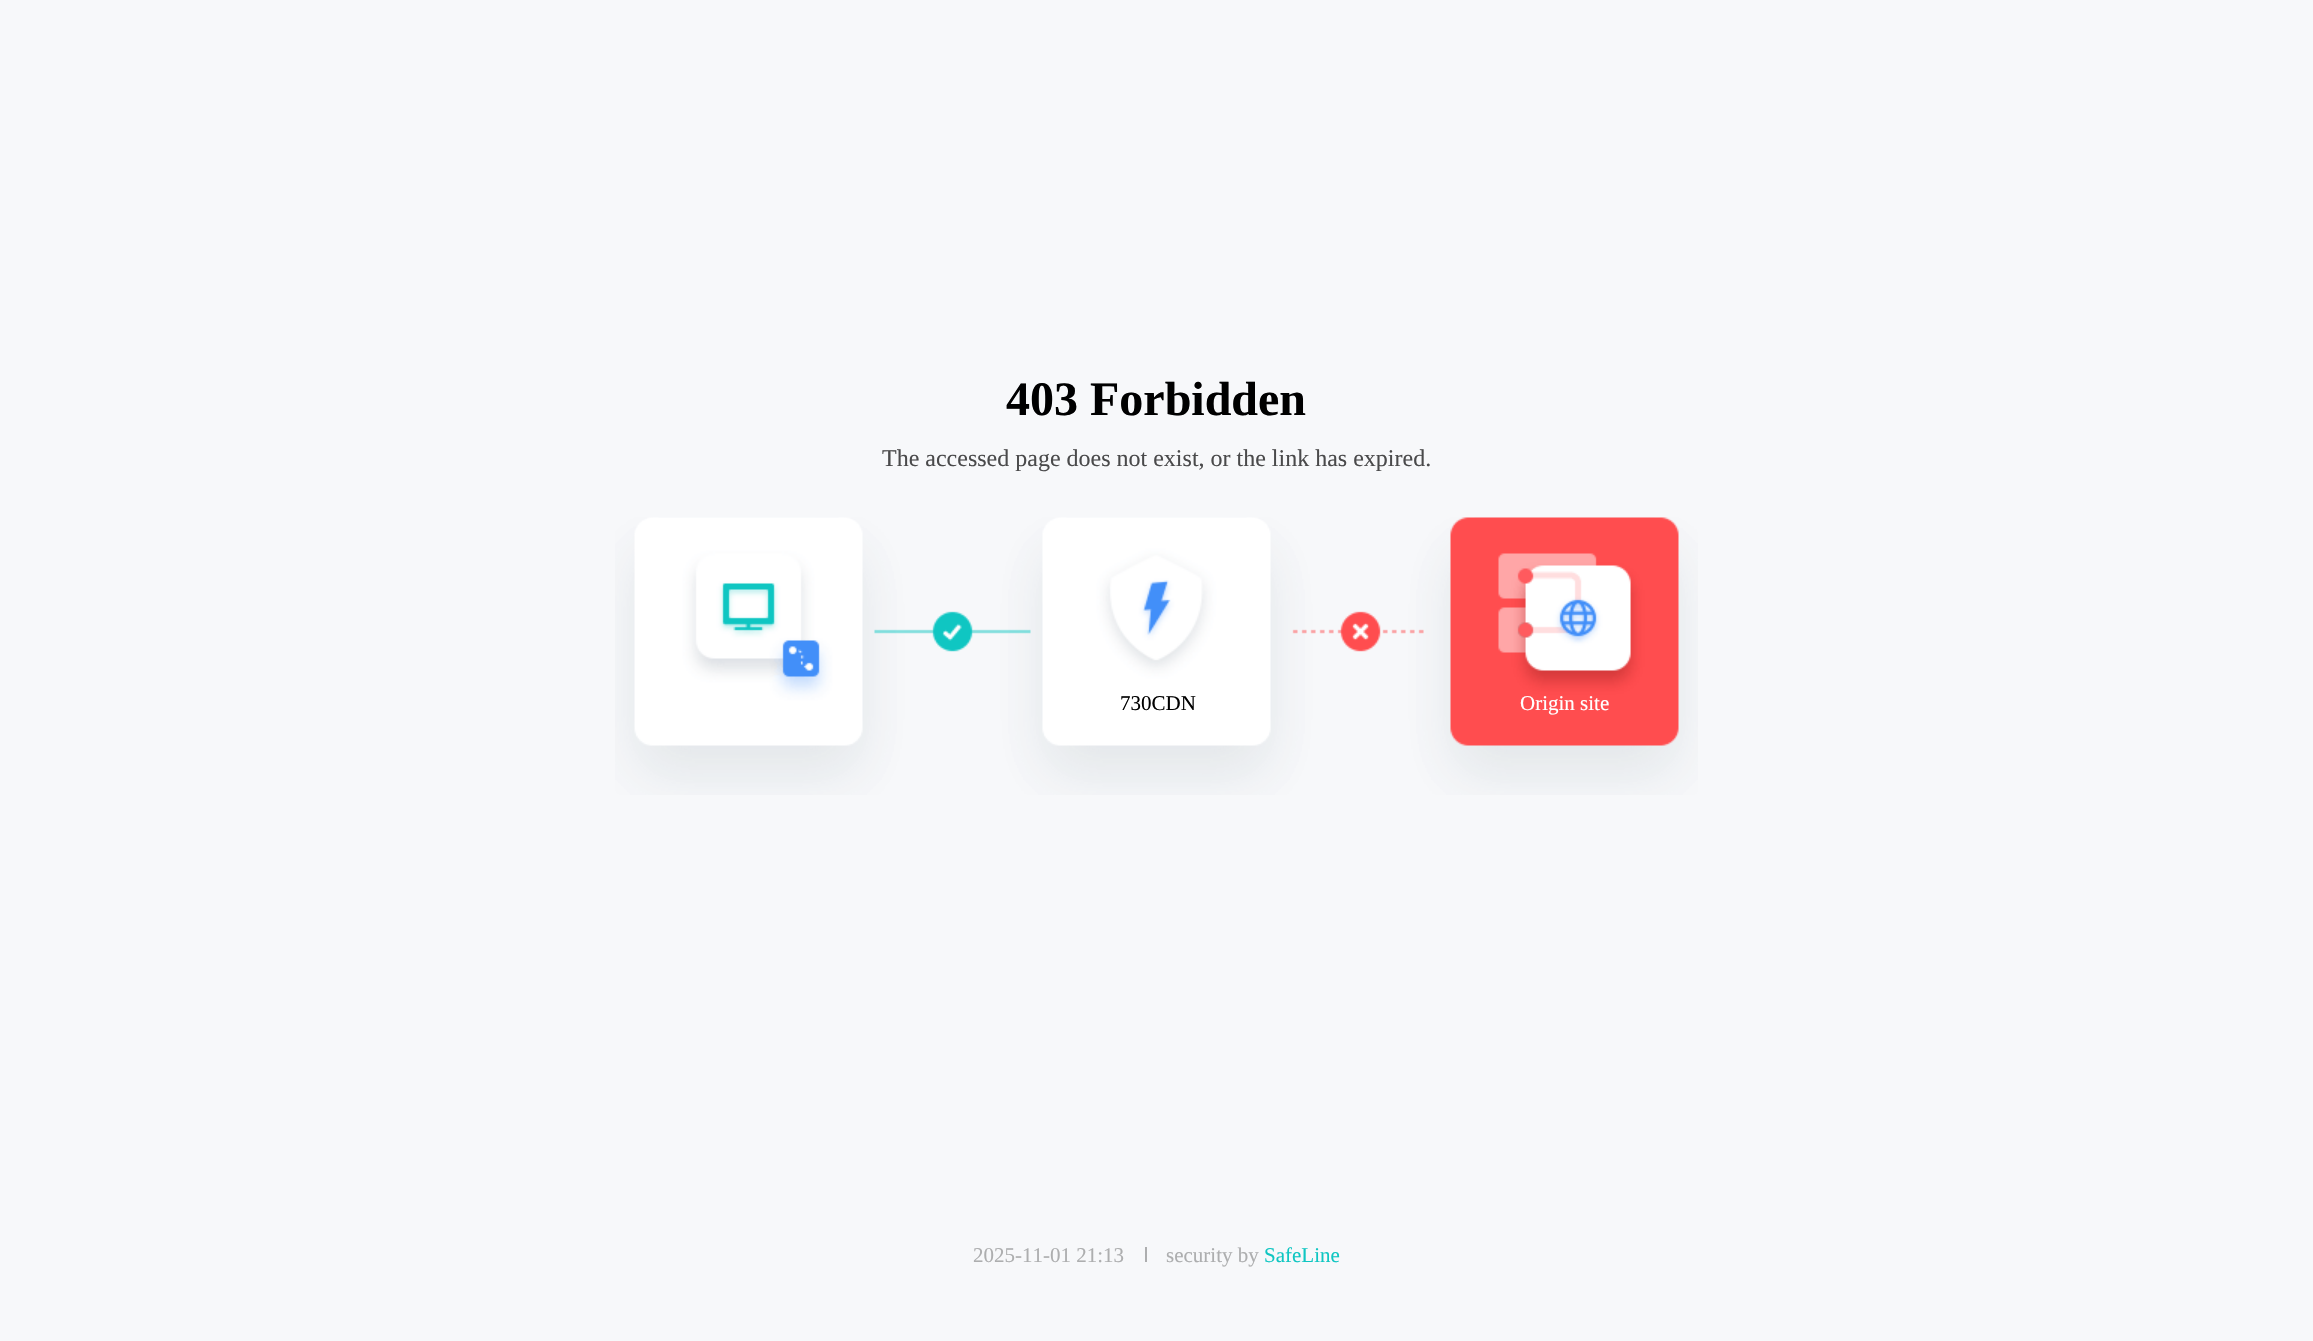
void draw(SkCanvas* canvas) {
    SkPaint paint;
    paint.setAntiAlias(true);
    canvas->clear(0xFFF7F8FA);
    SkFont font1(fontMgr->matchFamilyStyle("Liberation Serif", SkFontStyle::Bold()), 48);
    font1.setSubpixel(true);
    paint.setColor(0xFF000000);
    canvas->drawString("403 Forbidden", 1006, 415, font1, paint);
    SkFont font2(fontMgr->matchFamilyStyle("Liberation Serif", SkFontStyle::Normal()), 24);
    font2.setSubpixel(true);
    paint.setColor(0xFF4A4A4B);
    canvas->drawString("The accessed page does not exist, or the link has expired.", 882, 466, font2, paint);
    canvas->drawImageRect(SkImages::DeferredFromEncodedData(SkData::MakeFromFileName("img1.png")), SkRect::MakeXYWH(615, 517, 1083, 278), SkSamplingOptions());
    SkFont font3(fontMgr->matchFamilyStyle("Liberation Serif", SkFontStyle::Normal()), 21);
    font3.setSubpixel(true);
    paint.setColor(0xFF000000);
    canvas->drawString("730CDN", 1120, 710, font3, paint);
    paint.setColor(0xFFFFFFFF);
    canvas->drawString("Origin site", 1520, 710, font3, paint);
    paint.setColor(0xFFADAEAF);
    canvas->drawString("2025-11-01 21:13", 973, 1262, font3, paint);
    canvas->drawRect(SkRect::MakeXYWH(1145, 1247, 2, 15), paint);
    canvas->drawString("security by", 1166, 1262, font3, paint);
    paint.setColor(0xFF0FC6C2);
    canvas->drawString("SafeLine", 1264, 1262, font3, paint);
}
